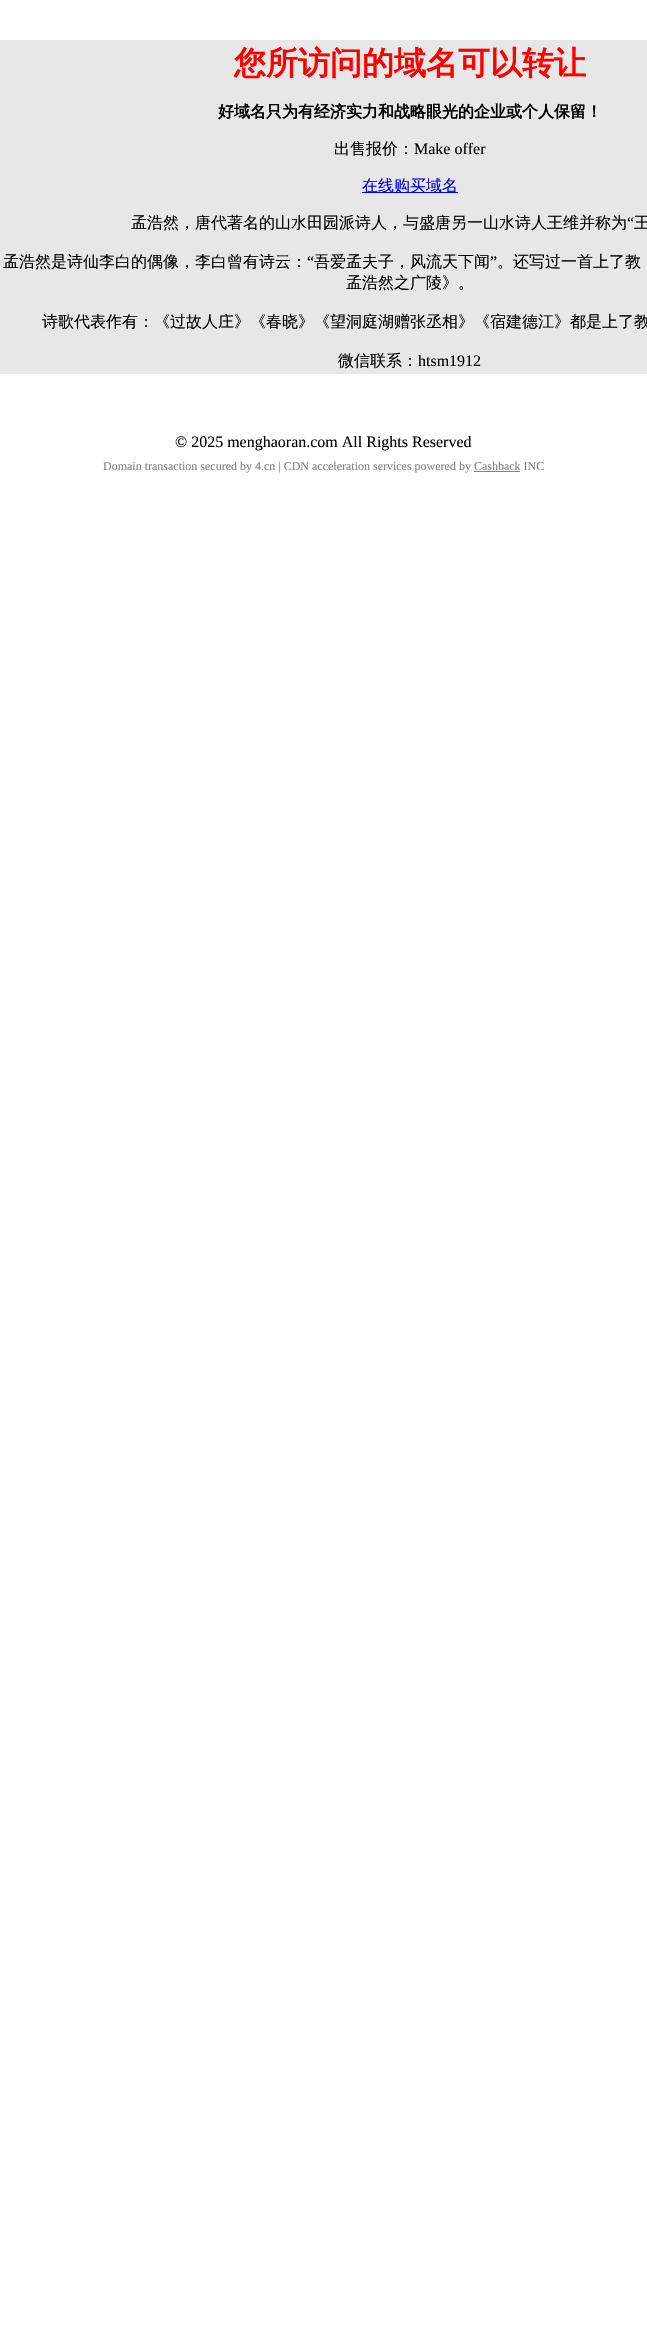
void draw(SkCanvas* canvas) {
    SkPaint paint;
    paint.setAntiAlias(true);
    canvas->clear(0xFFFFFFFF);
    paint.setColor(0xFFE7E7E7);
    canvas->drawRect(SkRect::MakeXYWH(0, 40, 647, 334), paint);
    SkFont font1(fontMgr->matchFamilyStyle("WenQuanYi Zen Hei", SkFontStyle::Bold()), 32);
    font1.setSubpixel(true);
    paint.setColor(0xFFFF0000);
    canvas->drawString("您所访问的域名可以转让", 234, 74, font1, paint);
    SkFont font2(fontMgr->matchFamilyStyle("WenQuanYi Zen Hei", SkFontStyle::Bold()), 16);
    font2.setSubpixel(true);
    paint.setColor(0xFF000000);
    canvas->drawString("好域名只为有经济实力和战略眼光的企业或个人保留！", 218, 117, font2, paint);
    SkFont font3(fontMgr->matchFamilyStyle("WenQuanYi Zen Hei", SkFontStyle(500, SkFontStyle::kNormal_Width, SkFontStyle::kUpright_Slant)), 16);
    font3.setSubpixel(true);
    canvas->drawString("出售报价：", 334, 154, font3, paint);
    SkFont font4(fontMgr->matchFamilyStyle("Liberation Serif", SkFontStyle::Normal()), 16);
    font4.setSubpixel(true);
    canvas->drawString("Make offer", 414, 154, font4, paint);
    paint.setColor(0xFF0000EE);
    canvas->drawRect(SkRect::MakeXYWH(362, 192, 96, 1), paint);
    canvas->drawString("在线购买域名", 362, 191, font3, paint);
    paint.setColor(0xFF000000);
    canvas->drawString("孟浩然，唐代著名的山水田园派诗人，与盛唐另一山水诗人王维并称为", 131, 228, font3, paint);
    canvas->drawString("“", 627, 228, font4, paint);
    canvas->drawString("王", 634, 228, font3, paint);
    canvas->drawString("孟浩然是诗仙李白的偶像，李白曾有诗云：", 3, 267, font3, paint);
    canvas->drawString("“", 307, 267, font4, paint);
    canvas->drawString("吾爱孟夫子，风流天下闻", 314, 267, font3, paint);
    canvas->drawString("”", 490, 267, font4, paint);
    canvas->drawString("。还写过一首上了教", 497, 267, font3, paint);
    canvas->drawString("孟浩然之广陵》。", 346, 288, font3, paint);
    canvas->drawString("诗歌代表作有：《过故人庄》《春晓》《望洞庭湖赠张丞相》《宿建德江》都是上了教", 42, 327, font3, paint);
    canvas->drawString("微信联系：", 338, 366, font3, paint);
    canvas->drawString("htsm1912", 418, 366, font4, paint);
    canvas->drawString("© 2025 menghaoran.com All Rights Reserved", 175, 447, font4, paint);
    SkFont font5(fontMgr->matchFamilyStyle("Liberation Serif", SkFontStyle::Normal()), 12);
    font5.setSubpixel(true);
    paint.setColor(0xFF808080);
    canvas->drawString("Domain transaction secured by 4.cn | CDN acceleration services powered by Cashback INC", 103, 470, font5, paint);
    canvas->drawRect(SkRect::MakeXYWH(474, 471, 46, 1), paint);
}
